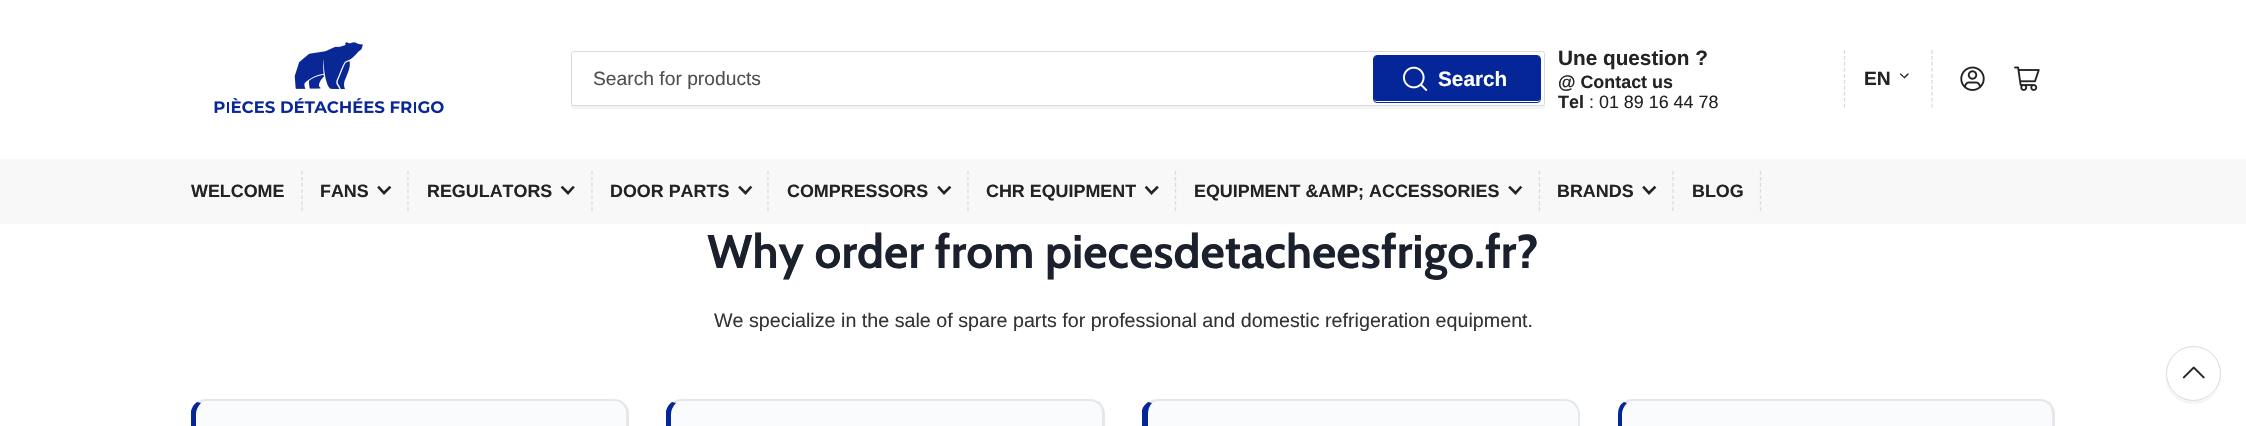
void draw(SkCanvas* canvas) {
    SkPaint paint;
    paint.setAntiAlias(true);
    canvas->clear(0xFFFFFFFF);
    canvas->drawImageRect(SkImages::DeferredFromEncodedData(SkData::MakeFromFileName("img1.png")), SkRect::MakeXYWH(214, 42, 230, 72), SkSamplingOptions());
    paint.setColor(0xFFF4F4F4);
    canvas->drawPath(SkPathBuilder().moveTo(571, 55).lineTo(571, 106).cubicTo(571, 108, 572, 109, 574, 109).lineTo(1542, 109).cubicTo(1544, 109, 1545, 108, 1545, 106).lineTo(1545, 104).cubicTo(1545, 105, 1544, 106, 1542, 106).lineTo(574, 106).cubicTo(572, 106, 571, 105, 571, 104).close().detach(), paint);
    paint.setStyle(SkPaint::kStroke_Style);
    paint.setStrokeWidth(1);
    paint.setColor(0xFFDADADA);
    canvas->drawRoundRect(SkRect::MakeXYWH(571.5f, 51.5f, 973, 54), 2, 2, paint);
    SkFont font1(fontMgr->matchFamilyStyle("Liberation Sans", SkFontStyle::Normal()), 19.25f);
    font1.setSubpixel(true);
    paint.setStyle(SkPaint::kFill_Style);
    paint.setColor(0xFF4F4F4F);
    canvas->drawString("Search for products", 593, 85, font1, paint);
    paint.setStyle(SkPaint::kStroke_Style);
    paint.setColor(0xFF042698);
    canvas->drawRoundRect(SkRect::MakeXYWH(1373.5f, 55.5f, 167, 47), 3.5f, 3.5f, paint);
    paint.setStyle(SkPaint::kFill_Style);
    canvas->drawRoundRect(SkRect::MakeXYWH(1374, 56, 166, 45), 2.5f, 2.5f, paint);
    canvas->drawImageRect(SkImages::DeferredFromEncodedData(SkData::MakeFromFileName("img2.png")), SkRect::MakeXYWH(1402, 66, 26, 25), SkSamplingOptions());
    SkFont font2(fontMgr->matchFamilyStyle("Liberation Sans", SkFontStyle::Bold()), 20.75f);
    font2.setSubpixel(true);
    paint.setColor(0xFFFFFFFF);
    canvas->drawString("Search", 1438, 86, font2, paint);
    paint.setColor(0xFF232323);
    canvas->drawString("Une question ?", 1558, 65, font2, paint);
    SkFont font3(fontMgr->matchFamilyStyle("Liberation Sans", SkFontStyle::Bold()), 17.9f);
    font3.setSubpixel(true);
    canvas->drawString("@ Contact us", 1558, 88, font3, paint);
    canvas->drawString("Tel", 1558, 108, font3, paint);
    SkFont font4(fontMgr->matchFamilyStyle("Liberation Sans", SkFontStyle::Normal()), 17.9f);
    font4.setSubpixel(true);
    canvas->drawString(": 01 89 16 44 78", 1589, 108, font4, paint);
    paint.setStyle(SkPaint::kStroke_Style);
    paint.setStrokeWidth(1.2f);
    paint.setColor(0xFFDADADA);
    paint.setPathEffect(SkDashPathEffect::Make({{3.75f, 2.23f}}, 0));
    canvas->drawPath(SkPathBuilder().moveTo(1932, 50).lineTo(1932, 107.5f).detach(), paint);
    paint.setPathEffect(nullptr);
    paint.setPathEffect(SkDashPathEffect::Make({{3.75f, 2.23f}}, 0));
    canvas->drawPath(SkPathBuilder().moveTo(1844.5f, 50).lineTo(1844.5f, 107.5f).detach(), paint);
    paint.setPathEffect(nullptr);
    SkFont font5(fontMgr->matchFamilyStyle("Liberation Sans", SkFontStyle::Bold()), 19.25f);
    font5.setSubpixel(true);
    paint.setStyle(SkPaint::kFill_Style);
    paint.setColor(0xFF232323);
    canvas->drawString("EN", 1864, 85, font5, paint);
    canvas->drawPath(SkPathBuilder().moveTo(1901, 73.5f).lineTo(1904.5f, 77).cubicTo(1905, 77.5f, 1905, 78, 1904.5f, 78).cubicTo(1904.5f, 78.5f, 1904, 78.5f, 1904, 78).lineTo(1900, 74.5f).cubicTo(1900, 74, 1900, 74, 1900, 73.5f).cubicTo(1900.5f, 73.5f, 1901, 73.5f, 1901, 73.5f).close().detach(), paint);
    canvas->drawPath(SkPathBuilder().moveTo(1904, 77).lineTo(1907.5f, 73.5f).cubicTo(1908, 73.5f, 1908.5f, 73.5f, 1908.5f, 73.5f).cubicTo(1909, 74, 1909, 74, 1908.5f, 74.5f).lineTo(1905, 78).cubicTo(1904.5f, 78.5f, 1904.5f, 78.5f, 1904, 78).cubicTo(1904, 78, 1904, 77.5f, 1904, 77).close().detach(), paint);
    canvas->drawImageRect(SkImages::DeferredFromEncodedData(SkData::MakeFromFileName("img3.png")), SkRect::MakeXYWH(1960, 66, 25, 25), SkSamplingOptions());
    canvas->drawImageRect(SkImages::DeferredFromEncodedData(SkData::MakeFromFileName("img4.png")), SkRect::MakeXYWH(2014, 66, 26, 25), SkSamplingOptions());
    paint.setColor(0xFFF8F8F8);
    canvas->drawRect(SkRect::MakeXYWH(0, 159, 2246, 65), paint);
    paint.setColor(0xFF232323);
    canvas->drawString("WELCOME", 191, 197, font3, paint);
    paint.setStyle(SkPaint::kStroke_Style);
    paint.setColor(0xFFDADADA);
    paint.setPathEffect(SkDashPathEffect::Make({{3.75f, 2.29f}}, 0));
    canvas->drawPath(SkPathBuilder().moveTo(302, 171).lineTo(302, 211).detach(), paint);
    paint.setPathEffect(nullptr);
    paint.setStyle(SkPaint::kFill_Style);
    paint.setColor(0xFF232323);
    canvas->drawString("FANS", 320, 197, font3, paint);
    paint.setStyle(SkPaint::kStroke_Style);
    paint.setStrokeWidth(2.6f);
    paint.setStrokeCap(SkPaint::kSquare_Cap);
    canvas->drawPath(SkPathBuilder().moveTo(389.5f, 187.5f).lineTo(384, 193).lineTo(379, 187.5f).detach(), paint);
    paint.setStrokeWidth(1.2f);
    paint.setStrokeCap(SkPaint::kButt_Cap);
    paint.setColor(0xFFDADADA);
    paint.setPathEffect(SkDashPathEffect::Make({{3.75f, 2.29f}}, 0));
    canvas->drawPath(SkPathBuilder().moveTo(408, 171).lineTo(408, 211).detach(), paint);
    paint.setPathEffect(nullptr);
    paint.setStyle(SkPaint::kFill_Style);
    paint.setColor(0xFF232323);
    canvas->drawString("REGULATORS", 427, 197, font3, paint);
    paint.setStyle(SkPaint::kStroke_Style);
    paint.setStrokeWidth(2.6f);
    paint.setStrokeCap(SkPaint::kSquare_Cap);
    canvas->drawPath(SkPathBuilder().moveTo(573, 187.5f).lineTo(568, 193).lineTo(562.5f, 187.5f).detach(), paint);
    paint.setStrokeWidth(1.2f);
    paint.setStrokeCap(SkPaint::kButt_Cap);
    paint.setColor(0xFFDADADA);
    paint.setPathEffect(SkDashPathEffect::Make({{3.75f, 2.29f}}, 0));
    canvas->drawPath(SkPathBuilder().moveTo(592, 171).lineTo(592, 211).detach(), paint);
    paint.setPathEffect(nullptr);
    paint.setStyle(SkPaint::kFill_Style);
    paint.setColor(0xFF232323);
    canvas->drawString("DOOR PARTS", 610, 197, font3, paint);
    paint.setStyle(SkPaint::kStroke_Style);
    paint.setStrokeWidth(2.6f);
    paint.setStrokeCap(SkPaint::kSquare_Cap);
    canvas->drawPath(SkPathBuilder().moveTo(750.5f, 187.5f).lineTo(745.5f, 193).lineTo(740, 187.5f).detach(), paint);
    paint.setStrokeWidth(1.2f);
    paint.setStrokeCap(SkPaint::kButt_Cap);
    paint.setColor(0xFFDADADA);
    paint.setPathEffect(SkDashPathEffect::Make({{3.75f, 2.29f}}, 0));
    canvas->drawPath(SkPathBuilder().moveTo(768, 171).lineTo(768, 211).detach(), paint);
    paint.setPathEffect(nullptr);
    paint.setStyle(SkPaint::kFill_Style);
    paint.setColor(0xFF232323);
    canvas->drawString("COMPRESSORS", 787, 197, font3, paint);
    paint.setStyle(SkPaint::kStroke_Style);
    paint.setStrokeWidth(2.6f);
    paint.setStrokeCap(SkPaint::kSquare_Cap);
    canvas->drawPath(SkPathBuilder().moveTo(949.5f, 187.5f).lineTo(944, 193).lineTo(939, 187.5f).detach(), paint);
    paint.setStrokeWidth(1.2f);
    paint.setStrokeCap(SkPaint::kButt_Cap);
    paint.setColor(0xFFDADADA);
    paint.setPathEffect(SkDashPathEffect::Make({{3.75f, 2.29f}}, 0));
    canvas->drawPath(SkPathBuilder().moveTo(968, 171).lineTo(968, 211).detach(), paint);
    paint.setPathEffect(nullptr);
    paint.setStyle(SkPaint::kFill_Style);
    paint.setColor(0xFF232323);
    canvas->drawString("CHR EQUIPMENT", 986, 197, font3, paint);
    paint.setStyle(SkPaint::kStroke_Style);
    paint.setStrokeWidth(2.6f);
    paint.setStrokeCap(SkPaint::kSquare_Cap);
    canvas->drawPath(SkPathBuilder().moveTo(1157, 187.5f).lineTo(1151.5f, 193).lineTo(1146.5f, 187.5f).detach(), paint);
    paint.setStrokeWidth(1.2f);
    paint.setStrokeCap(SkPaint::kButt_Cap);
    paint.setColor(0xFFDADADA);
    paint.setPathEffect(SkDashPathEffect::Make({{3.75f, 2.29f}}, 0));
    canvas->drawPath(SkPathBuilder().moveTo(1175.5f, 171).lineTo(1175.5f, 211).detach(), paint);
    paint.setPathEffect(nullptr);
    paint.setStyle(SkPaint::kFill_Style);
    paint.setColor(0xFF232323);
    canvas->drawString("EQUIPMENT &AMP; ACCESSORIES", 1194, 197, font3, paint);
    paint.setStyle(SkPaint::kStroke_Style);
    paint.setStrokeWidth(2.6f);
    paint.setStrokeCap(SkPaint::kSquare_Cap);
    canvas->drawPath(SkPathBuilder().moveTo(1520.5f, 187.5f).lineTo(1515.5f, 193).lineTo(1510, 187.5f).detach(), paint);
    paint.setStrokeWidth(1.2f);
    paint.setStrokeCap(SkPaint::kButt_Cap);
    paint.setColor(0xFFDADADA);
    paint.setPathEffect(SkDashPathEffect::Make({{3.75f, 2.29f}}, 0));
    canvas->drawPath(SkPathBuilder().moveTo(1539.5f, 171).lineTo(1539.5f, 211).detach(), paint);
    paint.setPathEffect(nullptr);
    paint.setStyle(SkPaint::kFill_Style);
    paint.setColor(0xFF232323);
    canvas->drawString("BRANDS", 1557, 197, font3, paint);
    paint.setStyle(SkPaint::kStroke_Style);
    paint.setStrokeWidth(2.6f);
    paint.setStrokeCap(SkPaint::kSquare_Cap);
    canvas->drawPath(SkPathBuilder().moveTo(1654.5f, 187.5f).lineTo(1649, 193).lineTo(1644, 187.5f).detach(), paint);
    paint.setStrokeWidth(1.2f);
    paint.setStrokeCap(SkPaint::kButt_Cap);
    paint.setColor(0xFFDADADA);
    paint.setPathEffect(SkDashPathEffect::Make({{3.75f, 2.29f}}, 0));
    canvas->drawPath(SkPathBuilder().moveTo(1673, 171).lineTo(1673, 211).detach(), paint);
    paint.setPathEffect(nullptr);
    paint.setStyle(SkPaint::kFill_Style);
    paint.setColor(0xFF232323);
    canvas->drawString("BLOG", 1692, 197, font3, paint);
    paint.setStyle(SkPaint::kStroke_Style);
    paint.setColor(0xFFDADADA);
    paint.setPathEffect(SkDashPathEffect::Make({{3.75f, 2.29f}}, 0));
    canvas->drawPath(SkPathBuilder().moveTo(1760.5f, 171).lineTo(1760.5f, 211).detach(), paint);
    paint.setPathEffect(nullptr);
    SkFont font6(fontMgr->matchFamilyStyle("Cabin", SkFontStyle::Bold()), 47.25f);
    font6.setSubpixel(true);
    paint.setStyle(SkPaint::kFill_Style);
    paint.setColor(0xFF1A202C);
    canvas->drawString("Why order from piecesdetacheesfrigo.fr?", 707, 268, font6, paint);
    SkFont font7(fontMgr->matchFamilyStyle("Liberation Sans", SkFontStyle::Normal()), 19.7f);
    font7.setSubpixel(true);
    paint.setColor(0xFF333333);
    canvas->drawString("We specialize in the sale of spare parts for professional and domestic refrigeration equipment.", 714, 327, font7, paint);
    paint.setColor(0xFFFAFBFC);
    canvas->drawPath(SkPathBuilder().moveTo(206, 401).lineTo(614, 401).cubicTo(621, 401, 626, 407, 626, 414).lineTo(626, 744).cubicTo(626, 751, 621, 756, 614, 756).lineTo(206, 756).cubicTo(201, 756, 196, 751, 196, 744).lineTo(196, 414).cubicTo(196, 407, 201, 401, 206, 401).close().detach(), paint);
    paint.setColor(0xFFE5E7EB);
    canvas->drawPath(SkPathBuilder().moveTo(206, 399).cubicTo(203, 399, 200, 400, 197, 402).lineTo(201, 403).cubicTo(202, 402, 204, 401, 206, 401).lineTo(614, 401).cubicTo(618, 401, 620, 402, 623, 405).lineTo(624, 403).cubicTo(622, 400, 618, 399, 614, 399).close().detach(), paint);
    canvas->drawPath(SkPathBuilder().moveTo(624, 403).cubicTo(627, 405, 628, 408, 629, 411).lineTo(629, 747).cubicTo(628, 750, 627, 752, 624, 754).lineTo(623, 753).cubicTo(625, 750, 626, 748, 626, 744).lineTo(626, 414).cubicTo(626, 410, 625, 407, 623, 405).close().detach(), paint);
    paint.setColor(0xFF042698);
    canvas->drawPath(SkPathBuilder().moveTo(191, 411).cubicTo(192, 407, 194, 404, 197, 402).lineTo(201, 403).cubicTo(198, 406, 196, 410, 196, 414).lineTo(196, 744).cubicTo(196, 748, 198, 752, 201, 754).lineTo(197, 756).cubicTo(194, 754, 192, 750, 191, 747).close().detach(), paint);
    paint.setColor(0xFFFAFBFC);
    canvas->drawPath(SkPathBuilder().moveTo(681, 401).lineTo(1090, 401).cubicTo(1097, 401, 1102, 407, 1102, 414).lineTo(1102, 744).cubicTo(1102, 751, 1097, 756, 1090, 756).lineTo(681, 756).cubicTo(676, 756, 671, 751, 671, 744).lineTo(671, 414).cubicTo(671, 407, 676, 401, 681, 401).close().detach(), paint);
    paint.setColor(0xFFE5E7EB);
    canvas->drawPath(SkPathBuilder().moveTo(681, 399).cubicTo(678, 399, 675, 400, 672, 402).lineTo(676, 403).cubicTo(677, 402, 679, 401, 681, 401).lineTo(1090, 401).cubicTo(1094, 401, 1097, 403, 1099, 405).lineTo(1101, 403).cubicTo(1098, 401, 1094, 399, 1090, 399).close().detach(), paint);
    canvas->drawPath(SkPathBuilder().moveTo(1101, 403).cubicTo(1103, 406, 1105, 410, 1105, 414).lineTo(1105, 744).cubicTo(1105, 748, 1103, 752, 1101, 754).lineTo(1099, 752).cubicTo(1101, 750, 1102, 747, 1102, 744).lineTo(1102, 414).cubicTo(1102, 411, 1101, 407, 1099, 405).close().detach(), paint);
    paint.setColor(0xFF042698);
    canvas->drawPath(SkPathBuilder().moveTo(666, 411).cubicTo(667, 407, 669, 404, 672, 402).lineTo(676, 403).cubicTo(673, 406, 671, 410, 671, 414).lineTo(671, 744).cubicTo(671, 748, 673, 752, 676, 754).lineTo(672, 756).cubicTo(669, 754, 667, 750, 666, 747).close().detach(), paint);
    paint.setColor(0xFFFAFBFC);
    canvas->drawPath(SkPathBuilder().moveTo(1158, 401).lineTo(1565, 401).cubicTo(1572, 401, 1578, 407, 1578, 414).lineTo(1578, 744).cubicTo(1578, 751, 1572, 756, 1565, 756).lineTo(1158, 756).cubicTo(1152, 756, 1148, 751, 1148, 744).lineTo(1148, 414).cubicTo(1148, 407, 1152, 401, 1158, 401).close().detach(), paint);
    paint.setColor(0xFFE5E7EB);
    canvas->drawPath(SkPathBuilder().moveTo(1158, 399).cubicTo(1154, 399, 1151, 400, 1148, 402).lineTo(1152, 403).cubicTo(1154, 402, 1156, 401, 1158, 401).lineTo(1565, 401).cubicTo(1568, 401, 1572, 402, 1574, 405).lineTo(1576, 403).cubicTo(1573, 401, 1569, 399, 1565, 399).close().detach(), paint);
    canvas->drawPath(SkPathBuilder().moveTo(1576, 403).cubicTo(1578, 406, 1580, 410, 1580, 414).lineTo(1580, 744).cubicTo(1580, 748, 1578, 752, 1576, 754).lineTo(1574, 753).cubicTo(1576, 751, 1578, 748, 1578, 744).lineTo(1578, 414).cubicTo(1578, 410, 1576, 407, 1574, 405).close().detach(), paint);
    paint.setColor(0xFF042698);
    canvas->drawPath(SkPathBuilder().moveTo(1142, 410).cubicTo(1143, 406, 1146, 404, 1148, 402).lineTo(1152, 403).cubicTo(1149, 406, 1148, 410, 1148, 414).lineTo(1148, 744).cubicTo(1148, 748, 1150, 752, 1152, 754).lineTo(1148, 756).cubicTo(1145, 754, 1143, 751, 1142, 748).close().detach(), paint);
    paint.setColor(0xFFFAFBFC);
    canvas->drawPath(SkPathBuilder().moveTo(1632, 401).lineTo(2040, 401).cubicTo(2047, 401, 2052, 407, 2052, 414).lineTo(2052, 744).cubicTo(2052, 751, 2047, 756, 2040, 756).lineTo(1632, 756).cubicTo(1627, 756, 1622, 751, 1622, 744).lineTo(1622, 414).cubicTo(1622, 407, 1627, 401, 1632, 401).close().detach(), paint);
    paint.setColor(0xFFE5E7EB);
    canvas->drawPath(SkPathBuilder().moveTo(1632, 399).cubicTo(1629, 399, 1626, 400, 1624, 402).lineTo(1627, 403).cubicTo(1628, 402, 1630, 401, 1632, 401).lineTo(2040, 401).cubicTo(2044, 401, 2047, 403, 2049, 405).lineTo(2051, 403).cubicTo(2048, 401, 2044, 399, 2040, 399).close().detach(), paint);
    canvas->drawPath(SkPathBuilder().moveTo(2051, 403).cubicTo(2053, 406, 2055, 410, 2055, 414).lineTo(2055, 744).cubicTo(2055, 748, 2053, 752, 2051, 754).lineTo(2049, 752).cubicTo(2051, 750, 2052, 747, 2052, 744).lineTo(2052, 414).cubicTo(2052, 411, 2051, 407, 2049, 405).close().detach(), paint);
    paint.setColor(0xFF042698);
    canvas->drawPath(SkPathBuilder().moveTo(1624, 402).cubicTo(1620, 404, 1618, 409, 1618, 414).lineTo(1618, 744).cubicTo(1618, 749, 1620, 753, 1623, 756).lineTo(1627, 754).cubicTo(1624, 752, 1622, 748, 1622, 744).lineTo(1622, 414).cubicTo(1622, 410, 1624, 406, 1627, 403).close().detach(), paint);
    paint.setColor(0xFFF4F4F4);
    canvas->drawPath(SkPathBuilder().moveTo(2166, 373).cubicTo(2162, 401, 2199, 416, 2216, 392).cubicTo(2219, 388, 2221, 383, 2221, 378).cubicTo(2216, 412, 2165, 407, 2166, 373).close().detach(), paint);
    paint.setStyle(SkPaint::kStroke_Style);
    paint.setStrokeWidth(1);
    paint.setColor(0xFFDADADA);
    canvas->drawCircle(2193.5f, 373.5f, 27, paint);
    canvas->drawImageRect(SkImages::DeferredFromEncodedData(SkData::MakeFromFileName("img5.png")), SkRect::MakeXYWH(2182, 366, 23, 13), SkSamplingOptions());
}
